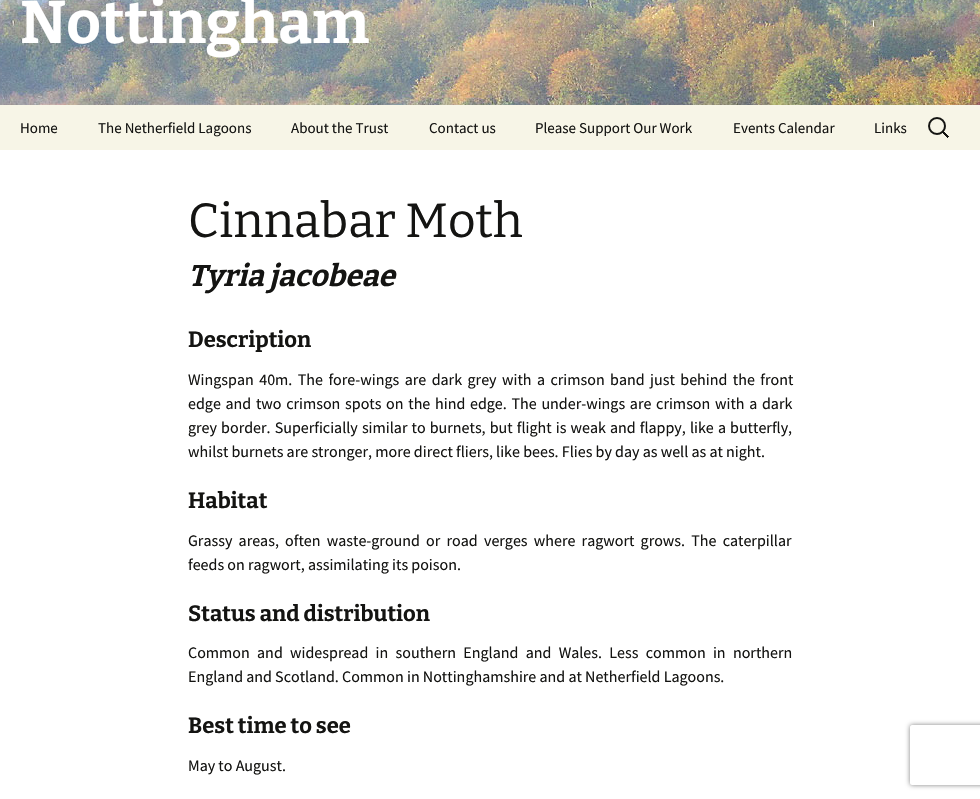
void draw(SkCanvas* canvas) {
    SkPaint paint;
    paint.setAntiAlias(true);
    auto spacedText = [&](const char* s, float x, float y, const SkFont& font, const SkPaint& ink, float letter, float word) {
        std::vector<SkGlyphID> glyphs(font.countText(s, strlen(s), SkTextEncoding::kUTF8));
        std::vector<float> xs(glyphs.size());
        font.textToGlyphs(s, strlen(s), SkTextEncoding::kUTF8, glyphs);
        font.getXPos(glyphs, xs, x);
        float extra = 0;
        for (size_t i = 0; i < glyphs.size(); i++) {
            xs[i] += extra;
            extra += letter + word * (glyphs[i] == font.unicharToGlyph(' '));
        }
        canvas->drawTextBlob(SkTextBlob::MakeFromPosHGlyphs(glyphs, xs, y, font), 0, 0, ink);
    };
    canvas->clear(0xFFFFFFFF);
    canvas->drawImageRect(SkImages::DeferredFromEncodedData(SkData::MakeFromFileName("img1.png")), SkRect::MakeXYWH(0, 0, 980, 105), SkSamplingOptions());
    SkFont font1(fontMgr->matchFamilyStyle("Bitter", SkFontStyle(100, SkFontStyle::kNormal_Width, SkFontStyle::kUpright_Slant)), 60);
    font1.setSubpixel(true);
    paint.setColor(0xFFFFFFFF);
    canvas->drawString("Nottingham", 20, 43, font1, paint);
    paint.setColor(0xFFF7F5E7);
    canvas->drawRect(SkRect::MakeXYWH(0, 105, 980, 45), paint);
    SkFont font2(fontMgr->matchFamilyStyle("Source Sans Pro", SkFontStyle::Normal()), 15);
    font2.setSubpixel(true);
    paint.setColor(0xFF141412);
    canvas->drawString("Home", 20, 133, font2, paint);
    canvas->drawString("The Netherfield Lagoons", 98, 133, font2, paint);
    canvas->drawString("About the Trust", 291, 133, font2, paint);
    canvas->drawString("Contact us", 429, 133, font2, paint);
    canvas->drawString("Please Support Our Work", 535, 133, font2, paint);
    canvas->drawString("Events Calendar", 733, 133, font2, paint);
    canvas->drawString("Links", 874, 133, font2, paint);
    canvas->drawImageRect(SkImages::DeferredFromEncodedData(SkData::MakeFromFileName("img2.png")), SkRect::MakeXYWH(928, 117, 21, 21), SkSamplingOptions());
    SkFont font3(fontMgr->matchFamilyStyle("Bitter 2", SkFontStyle(100, SkFontStyle::kNormal_Width, SkFontStyle::kUpright_Slant)), 48);
    font3.setSubpixel(true);
    canvas->drawString("Cinnabar Moth", 188, 237, font3, paint);
    SkFont font4(fontMgr->matchFamilyStyle("Bitter", SkFontStyle(100, SkFontStyle::kNormal_Width, SkFontStyle::kItalic_Slant)), 30);
    font4.setSubpixel(true);
    canvas->drawString("Tyria jacobeae", 188, 286, font4, paint);
    SkFont font5(fontMgr->matchFamilyStyle("Bitter", SkFontStyle(100, SkFontStyle::kNormal_Width, SkFontStyle::kUpright_Slant)), 22);
    font5.setSubpixel(true);
    canvas->drawString("Description", 188, 347, font5, paint);
    SkFont font6(fontMgr->matchFamilyStyle("Source Sans Pro", SkFontStyle::Normal()), 16);
    font6.setSubpixel(true);
    spacedText("Wingspan 40m. The fore-wings are dark grey with a crimson band just behind the front", 188, 385, font6, paint, 0, 2.25f);
    spacedText("edge and two crimson spots on the hind edge. The under-wings are crimson with a dark", 188, 409, font6, paint, 0, 1.5f);
    spacedText("grey border. Superficially similar to burnets, but flight is weak and flappy, like a butterfly,", 188, 433, font6, paint, 0, 0.9f);
    canvas->drawString("whilst burnets are stronger, more direct fliers, like bees. Flies by day as well as at night.", 188, 457, font6, paint);
    canvas->drawString("Habitat", 188, 508, font5, paint);
    spacedText("Grassy areas, often waste-ground or road verges where ragwort grows. The caterpillar", 188, 546, font6, paint, 0, 3);
    canvas->drawString("feeds on ragwort, assimilating its poison.", 188, 570, font6, paint);
    canvas->drawString("Status and distribution", 188, 621, font5, paint);
    spacedText("Common and widespread in southern England and Wales. Less common in northern", 188, 658, font6, paint, 0, 4.1f);
    canvas->drawString("England and Scotland. Common in Nottinghamshire and at Netherfield Lagoons.", 188, 682, font6, paint);
    canvas->drawString("Best time to see", 188, 733, font5, paint);
    canvas->drawString("May to August.", 188, 771, font6, paint);
    canvas->save();
    canvas->clipPath(SkPathBuilder(SkPathFillType::kEvenOdd).moveTo(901, 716).lineTo(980, 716).lineTo(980, 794).lineTo(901, 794).close().moveTo(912, 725).lineTo(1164, 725).cubicTo(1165, 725, 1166, 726, 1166, 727).lineTo(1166, 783).cubicTo(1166, 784, 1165, 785, 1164, 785).lineTo(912, 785).cubicTo(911, 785, 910, 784, 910, 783).lineTo(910, 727).cubicTo(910, 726, 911, 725, 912, 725).close().detach(), true);
    paint.setColor(0xFF808080);
    paint.setMaskFilter(SkMaskFilter::MakeBlur(kNormal_SkBlurStyle, 2.5f));
    canvas->drawRoundRect(SkRect::MakeXYWH(910, 725, 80, 60), 2, 2, paint);
    paint.setMaskFilter(nullptr);
    canvas->restore();
}
